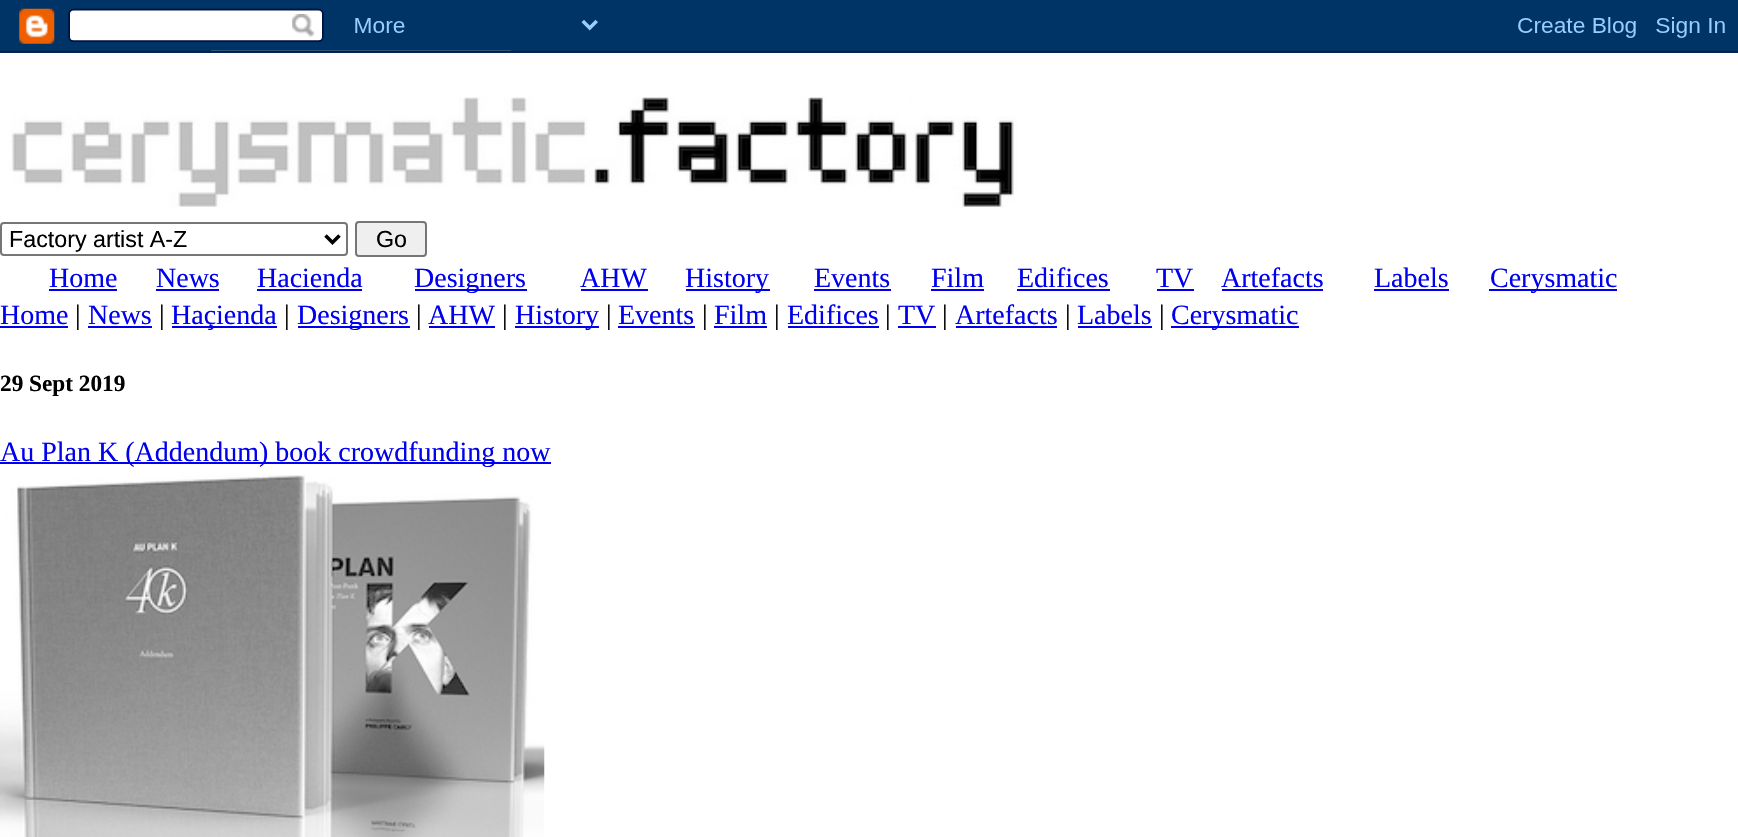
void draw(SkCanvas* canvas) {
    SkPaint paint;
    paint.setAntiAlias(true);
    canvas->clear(0xFFFFFFFF);
    canvas->drawImageRect(SkImages::DeferredFromEncodedData(SkData::MakeFromFileName("img1.png")), SkRect::MakeXYWH(0, 0, 1738, 53), SkSamplingOptions());
    canvas->drawImageRect(SkImages::DeferredFromEncodedData(SkData::MakeFromFileName("img2.png")), SkRect::MakeXYWH(9, 97, 1008, 111), SkSamplingOptions());
    paint.setStyle(SkPaint::kStroke_Style);
    paint.setStrokeWidth(2);
    paint.setColor(0xFF767676);
    canvas->drawRoundRect(SkRect::MakeXYWH(1, 223, 346, 32), 3, 3, paint);
    paint.setStrokeWidth(3.5f);
    paint.setColor(0xFF000000);
    canvas->drawPath(SkPathBuilder().moveTo(325.5f, 235.5f).lineTo(332.5f, 242.5f).lineTo(339.5f, 235.5f).detach(), paint);
    SkFont font1(fontMgr->matchFamilyStyle("Liberation Sans", SkFontStyle::Normal()), 23.25f);
    font1.setSubpixel(true);
    paint.setStyle(SkPaint::kFill_Style);
    canvas->drawString("Factory artist A-Z", 9, 247, font1, paint);
    paint.setColor(0xFFEFEFEF);
    canvas->drawRoundRect(SkRect::MakeXYWH(356, 222, 70, 34), 3, 3, paint);
    paint.setStyle(SkPaint::kStroke_Style);
    paint.setStrokeWidth(2);
    paint.setColor(0xFF767676);
    canvas->drawRoundRect(SkRect::MakeXYWH(356, 222, 70, 34), 3, 3, paint);
    paint.setStyle(SkPaint::kFill_Style);
    paint.setColor(0xFF000000);
    canvas->drawString("Go", 376, 247, font1, paint);
    SkFont font2(fontMgr->matchFamilyStyle("Liberation Serif", SkFontStyle::Normal()), 28);
    font2.setSubpixel(true);
    paint.setColor(0xFF0000EE);
    canvas->drawString("Home", 49, 287, font2, paint);
    canvas->drawRect(SkRect::MakeXYWH(49, 289, 68, 2), paint);
    canvas->drawString("News", 156, 287, font2, paint);
    canvas->drawRect(SkRect::MakeXYWH(156, 289, 63, 2), paint);
    canvas->drawString("Hacienda", 257, 287, font2, paint);
    canvas->drawRect(SkRect::MakeXYWH(257, 289, 105, 2), paint);
    canvas->drawRect(SkRect::MakeXYWH(415, 289, 112, 2), paint);
    canvas->drawString("Designers", 414, 287, font2, paint);
    canvas->drawString("AHW", 580, 287, font2, paint);
    canvas->drawRect(SkRect::MakeXYWH(581, 289, 67, 2), paint);
    canvas->drawRect(SkRect::MakeXYWH(686, 289, 84, 2), paint);
    canvas->drawString("History", 685, 287, font2, paint);
    canvas->drawString("Events", 814, 287, font2, paint);
    canvas->drawRect(SkRect::MakeXYWH(814, 289, 77, 2), paint);
    canvas->drawString("Film", 931, 287, font2, paint);
    canvas->drawRect(SkRect::MakeXYWH(931, 289, 53, 2), paint);
    canvas->drawString("Edifices", 1017, 287, font2, paint);
    canvas->drawRect(SkRect::MakeXYWH(1017, 289, 93, 2), paint);
    canvas->drawString("TV", 1156, 287, font2, paint);
    canvas->drawRect(SkRect::MakeXYWH(1157, 289, 37, 2), paint);
    canvas->drawString("Artefacts", 1221, 287, font2, paint);
    canvas->drawRect(SkRect::MakeXYWH(1222, 289, 101, 2), paint);
    canvas->drawString("Labels", 1374, 287, font2, paint);
    canvas->drawRect(SkRect::MakeXYWH(1374, 289, 75, 2), paint);
    canvas->drawRect(SkRect::MakeXYWH(1489, 289, 128, 2), paint);
    canvas->drawString("Cerysmatic", 1490, 287, font2, paint);
    canvas->drawString("Home", 0, 324, font2, paint);
    canvas->drawRect(SkRect::MakeXYWH(0, 326, 68, 2), paint);
    paint.setColor(0xFF000000);
    canvas->drawString("|", 75, 324, font2, paint);
    paint.setColor(0xFF0000EE);
    canvas->drawString("News", 88, 324, font2, paint);
    canvas->drawRect(SkRect::MakeXYWH(88, 326, 64, 2), paint);
    paint.setColor(0xFF000000);
    canvas->drawString("|", 159, 324, font2, paint);
    paint.setColor(0xFF0000EE);
    canvas->drawRect(SkRect::MakeXYWH(172, 326, 105, 2), paint);
    canvas->drawString("Haçienda", 171, 324, font2, paint);
    paint.setColor(0xFF000000);
    canvas->drawString("|", 284, 324, font2, paint);
    paint.setColor(0xFF0000EE);
    canvas->drawRect(SkRect::MakeXYWH(298, 326, 112, 2), paint);
    canvas->drawString("Designers", 297, 324, font2, paint);
    paint.setColor(0xFF000000);
    canvas->drawString("|", 416, 324, font2, paint);
    paint.setColor(0xFF0000EE);
    canvas->drawString("AHW", 428, 324, font2, paint);
    canvas->drawRect(SkRect::MakeXYWH(429, 326, 66, 2), paint);
    paint.setColor(0xFF000000);
    canvas->drawString("|", 502, 324, font2, paint);
    paint.setColor(0xFF0000EE);
    canvas->drawRect(SkRect::MakeXYWH(515, 326, 84, 2), paint);
    canvas->drawString("History", 515, 324, font2, paint);
    paint.setColor(0xFF000000);
    canvas->drawString("|", 606, 324, font2, paint);
    paint.setColor(0xFF0000EE);
    canvas->drawString("Events", 618, 324, font2, paint);
    canvas->drawRect(SkRect::MakeXYWH(618, 326, 77, 2), paint);
    paint.setColor(0xFF000000);
    canvas->drawString("|", 702, 324, font2, paint);
    paint.setColor(0xFF0000EE);
    canvas->drawString("Film", 714, 324, font2, paint);
    canvas->drawRect(SkRect::MakeXYWH(714, 326, 53, 2), paint);
    paint.setColor(0xFF000000);
    canvas->drawString("|", 774, 324, font2, paint);
    paint.setColor(0xFF0000EE);
    canvas->drawString("Edifices", 787, 324, font2, paint);
    canvas->drawRect(SkRect::MakeXYWH(788, 326, 91, 2), paint);
    paint.setColor(0xFF000000);
    canvas->drawString("|", 885, 324, font2, paint);
    paint.setColor(0xFF0000EE);
    canvas->drawString("TV", 898, 324, font2, paint);
    canvas->drawRect(SkRect::MakeXYWH(898, 326, 38, 2), paint);
    paint.setColor(0xFF000000);
    canvas->drawString("|", 942, 324, font2, paint);
    paint.setColor(0xFF0000EE);
    canvas->drawString("Artefacts", 955, 324, font2, paint);
    canvas->drawRect(SkRect::MakeXYWH(956, 326, 101, 2), paint);
    paint.setColor(0xFF000000);
    canvas->drawString("|", 1065, 324, font2, paint);
    paint.setColor(0xFF0000EE);
    canvas->drawString("Labels", 1077, 324, font2, paint);
    canvas->drawRect(SkRect::MakeXYWH(1078, 326, 74, 2), paint);
    paint.setColor(0xFF000000);
    canvas->drawString("|", 1159, 324, font2, paint);
    paint.setColor(0xFF0000EE);
    canvas->drawRect(SkRect::MakeXYWH(1171, 326, 128, 2), paint);
    canvas->drawString("Cerysmatic", 1171, 324, font2, paint);
    SkFont font3(fontMgr->matchFamilyStyle("Liberation Serif", SkFontStyle::Bold()), 23.25f);
    font3.setSubpixel(true);
    paint.setColor(0xFF000000);
    canvas->drawString("29 Sept 2019", 0, 391, font3, paint);
    paint.setColor(0xFF0000EE);
    canvas->drawRect(SkRect::MakeXYWH(0, 462, 551, 2), paint);
    canvas->drawString("Au Plan K (Addendum) book crowdfunding now", 0, 461, font2, paint);
    canvas->drawImageRect(SkImages::DeferredFromEncodedData(SkData::MakeFromFileName("img3.png")), SkRect::MakeXYWH(0, 475, 545, 362), SkSamplingOptions());
}
